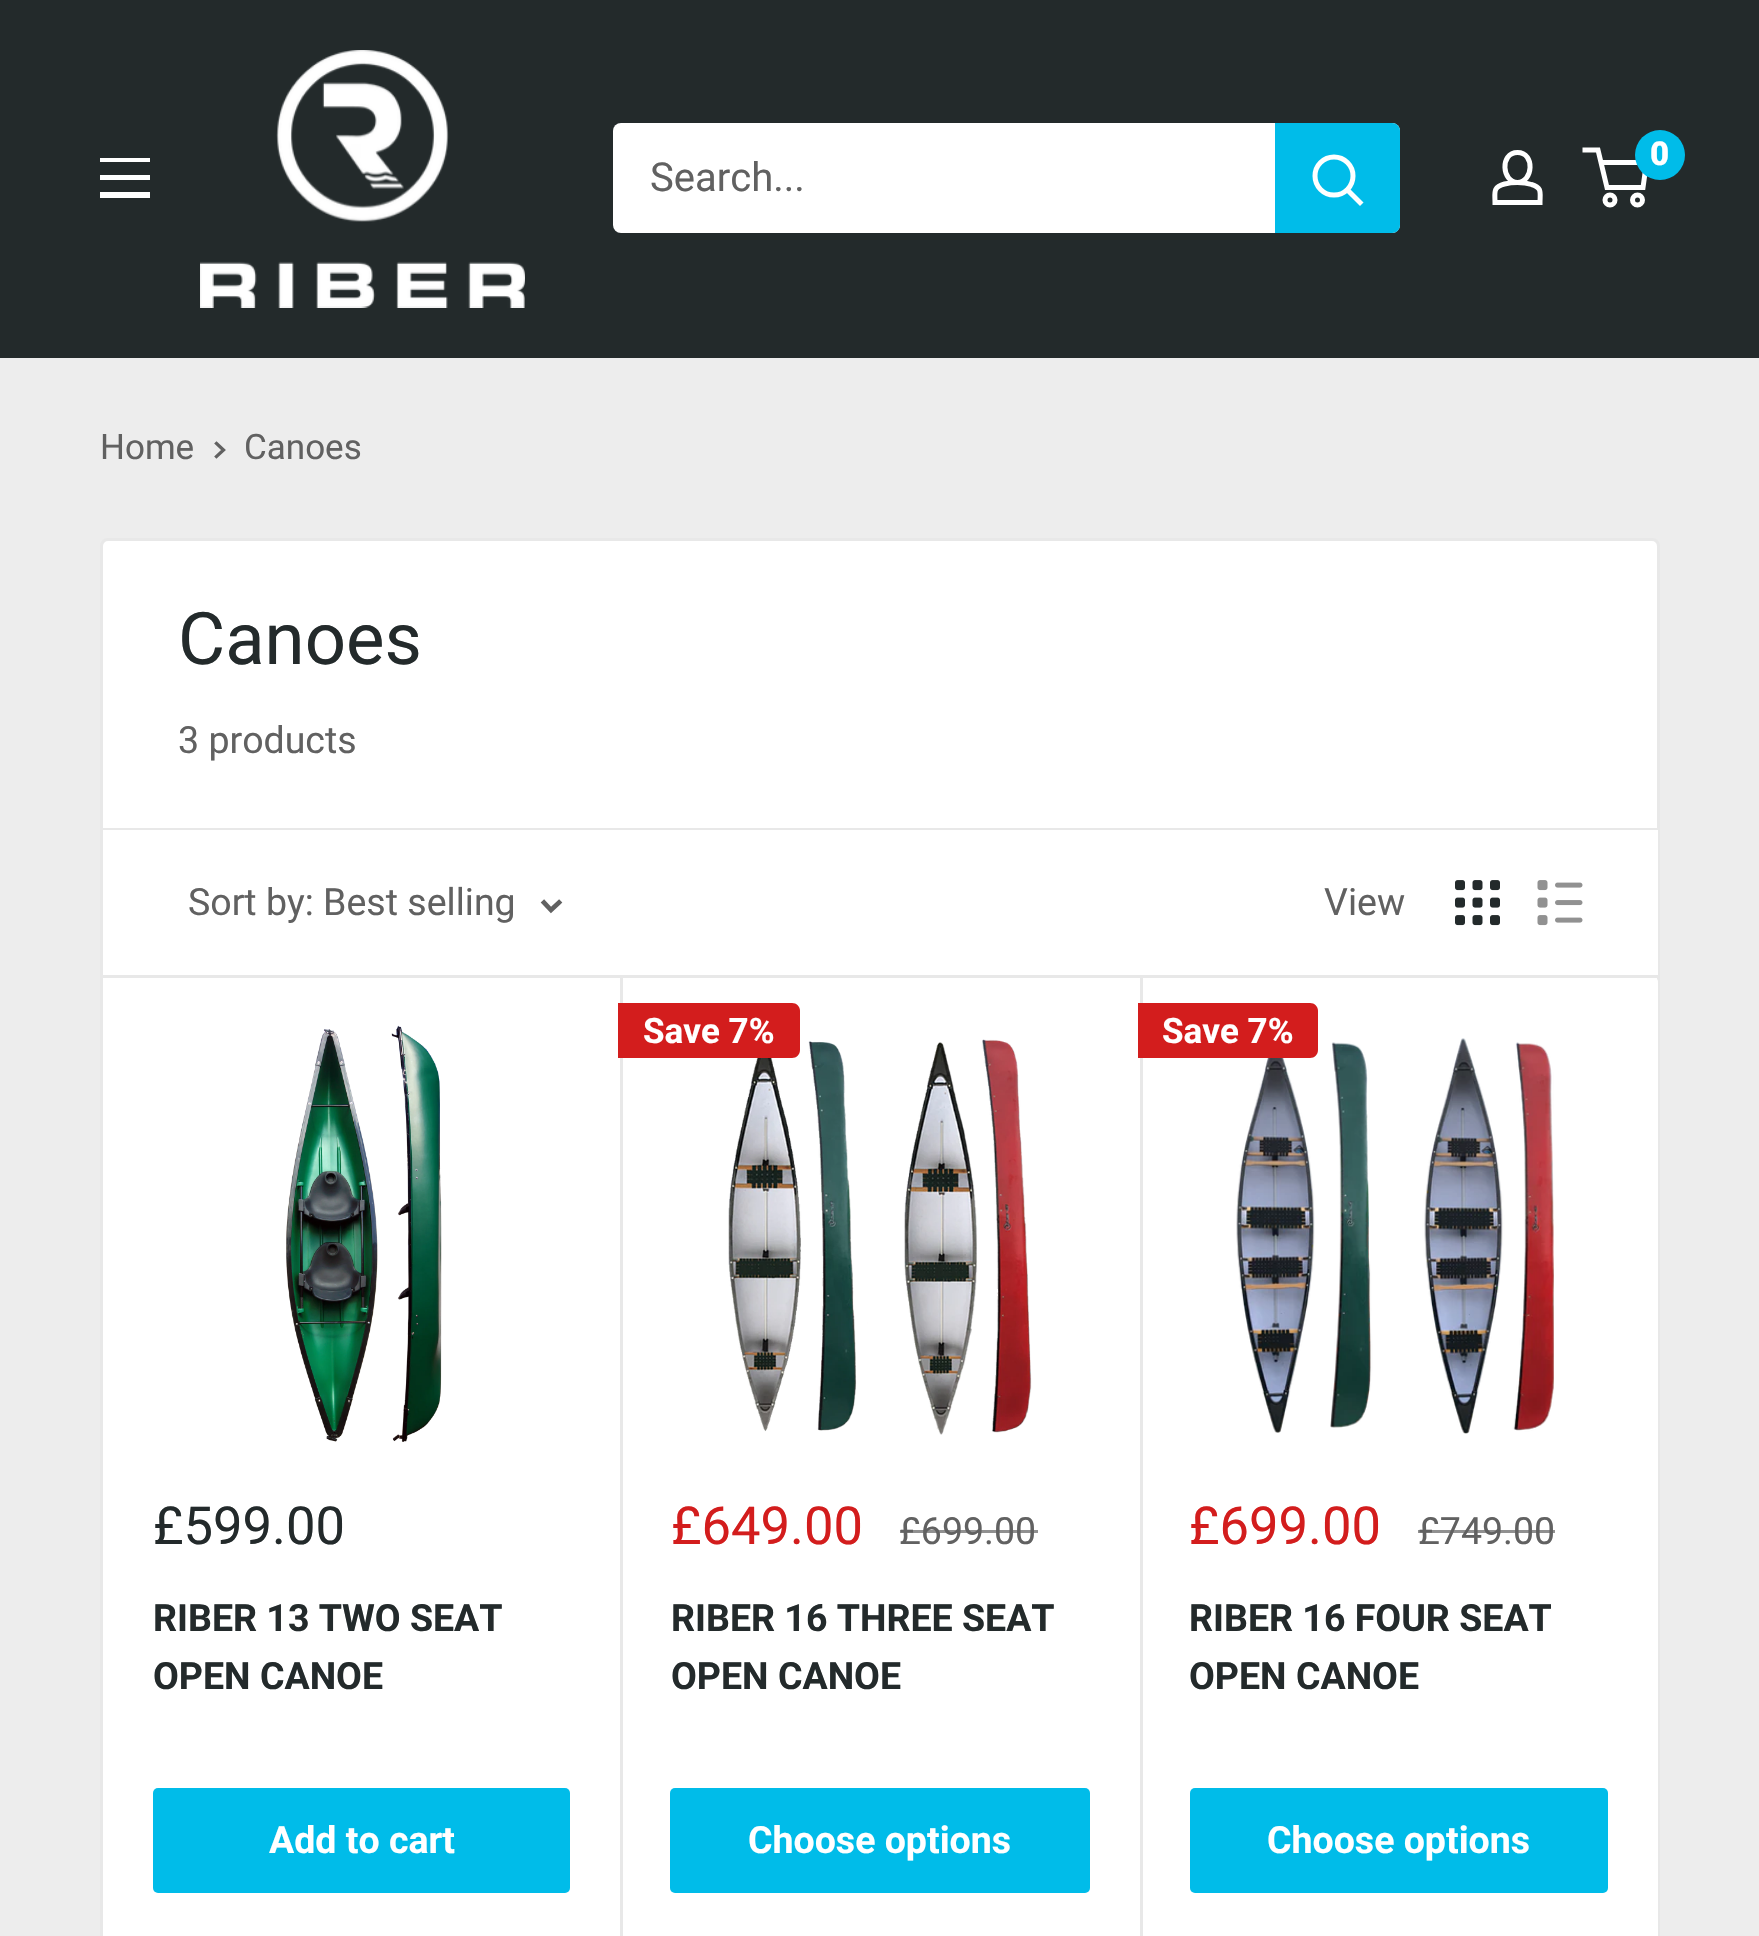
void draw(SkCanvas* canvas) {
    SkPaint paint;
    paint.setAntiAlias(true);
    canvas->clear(0xFFEDEDED);
    paint.setColor(0xFF232A2B);
    canvas->drawRect(SkRect::MakeXYWH(0, 0, 1759, 358), paint);
    canvas->drawImageRect(SkImages::DeferredFromEncodedData(SkData::MakeFromFileName("img1.png")), SkRect::MakeXYWH(200, 50, 325, 258), SkSamplingOptions());
    paint.setStyle(SkPaint::kStroke_Style);
    paint.setStrokeWidth(5);
    paint.setColor(0xFFFFFFFF);
    canvas->drawPath(SkPathBuilder().moveTo(1517.5f, 182.5f).cubicTo(1522, 182.5f, 1527, 183, 1531.5f, 184.5f).cubicTo(1542.5f, 187.5f, 1540, 193, 1540, 202.5f).lineTo(1495, 202.5f).cubicTo(1495, 192.5f, 1492.5f, 187, 1504.5f, 184).cubicTo(1508.5f, 183, 1513, 182.5f, 1517.5f, 182.5f).close().moveTo(1517.5f, 182.5f).cubicTo(1502, 182.5f, 1499.5f, 152.5f, 1517.5f, 152.5f).cubicTo(1535.5f, 152.5f, 1533, 182.5f, 1517.5f, 182.5f).close().detach(), paint);
    canvas->drawCircle(1610, 200, 5, paint);
    canvas->drawCircle(1637.5f, 200, 5, paint);
    canvas->drawPath(SkPathBuilder().moveTo(1601, 162.5f).lineTo(1646.5f, 162.5f).lineTo(1643, 187.5f).lineTo(1607, 187.5f).lineTo(1598, 150).lineTo(1582.5f, 150).detach(), paint);
    paint.setStyle(SkPaint::kFill_Style);
    paint.setColor(0xFF00BCE9);
    canvas->drawCircle(1660, 155, 25, paint);
    SkFont font1(fontMgr->matchFamilyStyle("Roboto", SkFontStyle(900, SkFontStyle::kNormal_Width, SkFontStyle::kUpright_Slant)), 33);
    font1.setSubpixel(true);
    paint.setColor(0xFFFFFFFF);
    canvas->drawString("0", 1650, 165, font1, paint);
    canvas->drawPath(SkPathBuilder(SkPathFillType::kEvenOdd).moveTo(100, 192).lineTo(150, 192).lineTo(150, 198).lineTo(100, 198).close().moveTo(100, 158).lineTo(150, 158).lineTo(150, 162).lineTo(100, 162).close().moveTo(100, 175).lineTo(150, 175).lineTo(150, 180).lineTo(100, 180).close().detach(), paint);
    canvas->drawRoundRect(SkRect::MakeXYWH(613, 123, 787, 110), 8, 8, paint);
    SkFont font2(fontMgr->matchFamilyStyle("Roboto", SkFontStyle::Normal()), 40);
    font2.setSubpixel(true);
    paint.setColor(0xFF616161);
    canvas->drawString("Search...", 650, 191, font2, paint);
    paint.setColor(0xFF00BCE9);
    canvas->drawPath(SkPathBuilder().moveTo(1275, 123).lineTo(1392, 123).cubicTo(1396.5f, 123, 1400, 126.5f, 1400, 131).lineTo(1400, 225).cubicTo(1400, 229.5f, 1396.5f, 233, 1392, 233).lineTo(1275, 233).close().detach(), paint);
    paint.setStyle(SkPaint::kStroke_Style);
    paint.setStrokeCap(SkPaint::kSquare_Cap);
    paint.setColor(0xFFFFFFFF);
    canvas->drawPath(SkPathBuilder().moveTo(1360, 202.5f).lineTo(1347.5f, 190).detach(), paint);
    paint.setStrokeCap(SkPaint::kButt_Cap);
    canvas->drawCircle(1334, 176, 19, paint);
    SkFont font3(fontMgr->matchFamilyStyle("Roboto", SkFontStyle::Normal()), 35);
    font3.setSubpixel(true);
    paint.setStyle(SkPaint::kFill_Style);
    paint.setColor(0xFF616161);
    canvas->drawString("Home", 100, 459, font3, paint);
    paint.setStyle(SkPaint::kStroke_Style);
    paint.setStrokeWidth(3.3f);
    paint.setStrokeCap(SkPaint::kSquare_Cap);
    canvas->drawPath(SkPathBuilder().moveTo(216.5f, 443.5f).lineTo(223.5f, 450).lineTo(216.5f, 456.5f).detach(), paint);
    paint.setStyle(SkPaint::kFill_Style);
    canvas->drawString("Canoes", 244, 459, font3, paint);
    paint.setColor(0xFFFFFFFF);
    canvas->drawRoundRect(SkRect::MakeXYWH(101.5f, 539.5f, 1557, 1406), 6.5f, 6.5f, paint);
    paint.setStyle(SkPaint::kStroke_Style);
    paint.setStrokeWidth(3);
    paint.setStrokeCap(SkPaint::kButt_Cap);
    paint.setColor(0xFFE8E8E8);
    canvas->drawRoundRect(SkRect::MakeXYWH(101.5f, 539.5f, 1557, 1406), 6.5f, 6.5f, paint);
    SkFont font4(fontMgr->matchFamilyStyle("Roboto", SkFontStyle::Normal()), 72.5f);
    font4.setSubpixel(true);
    paint.setStyle(SkPaint::kFill_Style);
    paint.setColor(0xFF232A2B);
    canvas->drawString("Canoes", 178, 664, font4, paint);
    SkFont font5(fontMgr->matchFamilyStyle("Roboto", SkFontStyle::Normal()), 37.5f);
    font5.setSubpixel(true);
    paint.setColor(0xFF616161);
    canvas->drawString("3 products", 178, 753, font5, paint);
    paint.setColor(0xFFE8E8E8);
    canvas->drawPath(SkPathBuilder().moveTo(103, 828).lineTo(103, 830).lineTo(1658, 830).lineTo(1658, 973).lineTo(1658, 828).close().detach(), paint);
    paint.setColor(0xFFFFFFFF);
    canvas->drawRoundRect(SkRect::MakeXYWH(103, 975, 1555, 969), 8, 8, paint);
    paint.setColor(0xFFE8E8E8);
    canvas->drawRect(SkRect::MakeXYWH(620, 975, 3, 961), paint);
    paint.setColor(0xFFFFFFFF);
    canvas->drawPath(SkPathBuilder().moveTo(1140, 975).lineTo(1650, 975).cubicTo(1654.5f, 975, 1658, 978.5f, 1658, 983).lineTo(1658, 1936).cubicTo(1658, 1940.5f, 1654.5f, 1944, 1650, 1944).lineTo(1140, 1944).close().detach(), paint);
    paint.setColor(0xFFE8E8E8);
    canvas->drawRect(SkRect::MakeXYWH(1140, 975, 3, 961), paint);
    canvas->drawPath(SkPathBuilder().moveTo(103, 975).lineTo(103, 978).lineTo(1658, 978).lineTo(1658, 833).lineTo(1658, 975).close().detach(), paint);
    paint.setColor(0xFFFFFFFF);
    canvas->drawRect(SkRect::MakeXYWH(1657, 830, 1, 145), paint);
    paint.setColor(0xFF616161);
    canvas->drawString("Sort by: Best selling", 188, 915, font5, paint);
    paint.setStyle(SkPaint::kStroke_Style);
    paint.setStrokeWidth(4.7f);
    paint.setStrokeCap(SkPaint::kSquare_Cap);
    canvas->drawPath(SkPathBuilder().moveTo(559, 902.5f).lineTo(551, 910).lineTo(544, 902.5f).detach(), paint);
    paint.setStyle(SkPaint::kFill_Style);
    canvas->drawString("View", 1324, 915, font5, paint);
    canvas->drawImageRect(SkImages::DeferredFromEncodedData(SkData::MakeFromFileName("img2.png")), SkRect::MakeXYWH(1455, 880, 45, 46), SkSamplingOptions());
    canvas->drawImageRect(SkImages::DeferredFromEncodedData(SkData::MakeFromFileName("img3.png")), SkRect::MakeXYWH(1537, 880, 46, 46), SkSamplingOptions());
    canvas->drawImageRect(SkImages::DeferredFromEncodedData(SkData::MakeFromFileName("img4.png")), SkRect::MakeXYWH(286, 1025, 156, 417), SkSamplingOptions());
    SkFont font6(fontMgr->matchFamilyStyle("Roboto", SkFontStyle::Normal()), 52.5f);
    font6.setSubpixel(true);
    paint.setColor(0xFF232A2B);
    canvas->drawString("£599.00", 153, 1544, font6, paint);
    SkFont font7(fontMgr->matchFamilyStyle("Roboto", SkFontStyle::Bold()), 37.5f);
    font7.setSubpixel(true);
    canvas->drawString("RIBER 13 TWO SEAT", 153, 1631, font7, paint);
    canvas->drawString("OPEN CANOE", 153, 1689, font7, paint);
    paint.setColor(0xFF00BCE9);
    canvas->drawRoundRect(SkRect::MakeXYWH(153, 1788, 417, 105), 5, 5, paint);
    paint.setColor(0xFFFFFFFF);
    canvas->drawString("Add to cart", 269, 1853, font7, paint);
    canvas->drawImageRect(SkImages::DeferredFromEncodedData(SkData::MakeFromFileName("img5.png")), SkRect::MakeXYWH(728, 1039, 304, 396), SkSamplingOptions());
    paint.setColor(0xFFD31D1D);
    canvas->drawPath(SkPathBuilder().moveTo(618, 1003).lineTo(792, 1003).cubicTo(796.5f, 1003, 800, 1006.5f, 800, 1011).lineTo(800, 1050).cubicTo(800, 1054.5f, 796.5f, 1058, 792, 1058).lineTo(618, 1058).close().detach(), paint);
    SkFont font8(fontMgr->matchFamilyStyle("Roboto", SkFontStyle::Bold()), 35);
    font8.setSubpixel(true);
    paint.setColor(0xFFFFFFFF);
    canvas->drawString("Save 7%", 643, 1043, font8, paint);
    paint.setColor(0xFFD31D1D);
    canvas->drawString("£649.00", 671, 1544, font6, paint);
    paint.setColor(0xFF616161);
    canvas->drawString("£699.00", 899, 1544, font5, paint);
    paint.setColor(0xB3616161);
    canvas->drawRect(SkRect::MakeXYWH(900, 1530, 138, 3), paint);
    paint.setColor(0xFF232A2B);
    canvas->drawString("RIBER 16 THREE SEAT", 671, 1631, font7, paint);
    canvas->drawString("OPEN CANOE", 671, 1689, font7, paint);
    paint.setColor(0xFF00BCE9);
    canvas->drawRoundRect(SkRect::MakeXYWH(670, 1788, 420, 105), 5, 5, paint);
    paint.setColor(0xFFFFFFFF);
    canvas->drawString("Choose options", 748, 1853, font7, paint);
    canvas->drawImageRect(SkImages::DeferredFromEncodedData(SkData::MakeFromFileName("img6.png")), SkRect::MakeXYWH(1236, 1038, 318, 396), SkSamplingOptions());
    paint.setColor(0xFFD31D1D);
    canvas->drawPath(SkPathBuilder().moveTo(1138, 1003).lineTo(1310, 1003).cubicTo(1314.5f, 1003, 1318, 1006.5f, 1318, 1011).lineTo(1318, 1050).cubicTo(1318, 1054.5f, 1314.5f, 1058, 1310, 1058).lineTo(1138, 1058).close().detach(), paint);
    paint.setColor(0xFFFFFFFF);
    canvas->drawString("Save 7%", 1162, 1043, font8, paint);
    paint.setColor(0xFFD31D1D);
    canvas->drawString("£699.00", 1189, 1544, font6, paint);
    paint.setColor(0xFF616161);
    canvas->drawString("£749.00", 1418, 1544, font5, paint);
    paint.setColor(0xB3616161);
    canvas->drawRect(SkRect::MakeXYWH(1418, 1530, 137, 3), paint);
    paint.setColor(0xFF232A2B);
    canvas->drawString("RIBER 16 FOUR SEAT", 1189, 1631, font7, paint);
    canvas->drawString("OPEN CANOE", 1189, 1689, font7, paint);
    paint.setColor(0xFF00BCE9);
    canvas->drawRoundRect(SkRect::MakeXYWH(1190, 1788, 418, 105), 5, 5, paint);
    paint.setColor(0xFFFFFFFF);
    canvas->drawString("Choose options", 1267, 1853, font7, paint);
}
